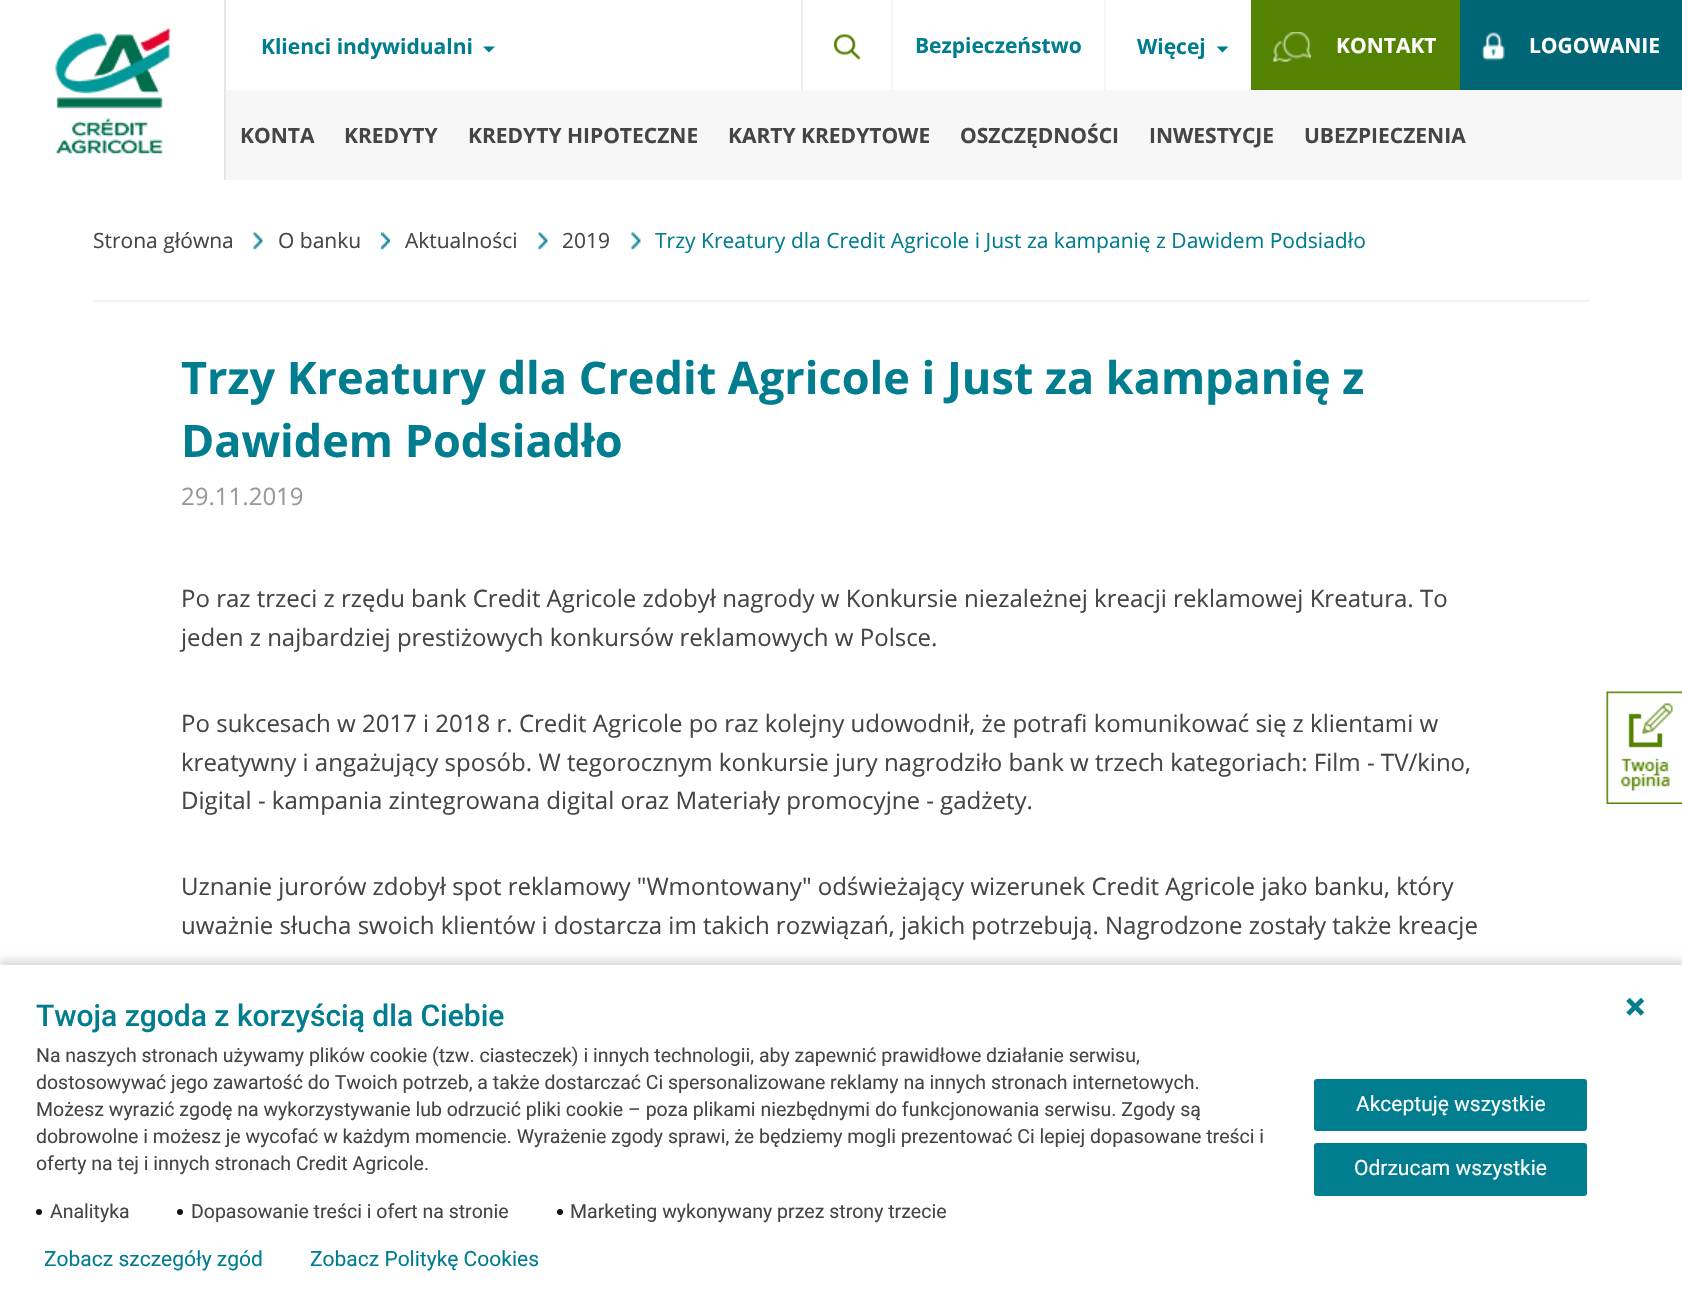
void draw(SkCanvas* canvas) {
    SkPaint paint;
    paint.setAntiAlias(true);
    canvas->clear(0xFFFFFFFF);
    canvas->drawImageRect(SkImages::DeferredFromEncodedData(SkData::MakeFromFileName("img1.png")), SkRect::MakeXYWH(55, 28, 115, 126), SkSamplingOptions());
    paint.setColor(0xFFE6E6E6);
    canvas->drawRect(SkRect::MakeXYWH(224, 0, 2, 180), paint);
    SkFont font1(fontMgr->matchFamilyStyle("Open Sans", SkFontStyle::Bold()), 21);
    font1.setSubpixel(true);
    paint.setColor(0xFF007D8F);
    canvas->drawString("Klienci indywidualni", 261, 54, font1, paint);
    canvas->drawPath(SkPathBuilder().moveTo(483, 46.5f).lineTo(495, 46.5f).lineTo(489, 52.5f).close().detach(), paint);
    paint.setColor(0xFFEDEDED);
    canvas->drawRect(SkRect::MakeXYWH(801, 0, 2, 90), paint);
    canvas->drawImageRect(SkImages::DeferredFromEncodedData(SkData::MakeFromFileName("img2.png")), SkRect::MakeXYWH(833, 34, 28, 26), SkSamplingOptions());
    paint.setColor(0xFFF7F7F7);
    canvas->drawRect(SkRect::MakeXYWH(891, 0, 2, 90), paint);
    paint.setColor(0xFF007D8F);
    canvas->drawString("Bezpieczeństwo", 915, 53, font1, paint);
    paint.setColor(0xFFF7F7F7);
    canvas->drawRect(SkRect::MakeXYWH(226, 90, 1456, 90), paint);
    canvas->drawRect(SkRect::MakeXYWH(1104, 0, 2, 93), paint);
    paint.setColor(0xFF007D8F);
    canvas->drawString("Więcej", 1137, 54, font1, paint);
    canvas->drawPath(SkPathBuilder().moveTo(1216.5f, 46.5f).lineTo(1228.5f, 46.5f).lineTo(1222.5f, 52.5f).close().detach(), paint);
    paint.setColor(0xFF538300);
    canvas->drawRect(SkRect::MakeXYWH(1251, 0, 209, 90), paint);
    canvas->drawImageRect(SkImages::DeferredFromEncodedData(SkData::MakeFromFileName("img3.png")), SkRect::MakeXYWH(1273, 32, 38, 30), SkSamplingOptions());
    paint.setColor(0xFFFFFFFF);
    canvas->drawString("KONTAKT", 1336, 53, font1, paint);
    paint.setColor(0xFF006675);
    canvas->drawRect(SkRect::MakeXYWH(1460, 0, 222, 90), paint);
    canvas->drawImageRect(SkImages::DeferredFromEncodedData(SkData::MakeFromFileName("img4.png")), SkRect::MakeXYWH(1482, 32, 23, 29), SkSamplingOptions());
    paint.setColor(0xFFFFFFFF);
    canvas->drawString("LOGOWANIE", 1529, 53, font1, paint);
    paint.setColor(0xFF454545);
    canvas->drawString("KONTA", 240, 143, font1, paint);
    canvas->drawString("KREDYTY", 344, 143, font1, paint);
    canvas->drawString("KREDYTY HIPOTECZNE", 468, 143, font1, paint);
    canvas->drawString("KARTY KREDYTOWE", 728, 143, font1, paint);
    canvas->drawString("OSZCZĘDNOŚCI", 960, 143, font1, paint);
    canvas->drawString("INWESTYCJE", 1149, 143, font1, paint);
    canvas->drawString("UBEZPIECZENIA", 1304, 143, font1, paint);
    paint.setColor(0xFFF2F2F2);
    canvas->drawRect(SkRect::MakeXYWH(93, 300, 1497, 2), paint);
    SkFont font2(fontMgr->matchFamilyStyle("Open Sans", SkFontStyle::Normal()), 21);
    font2.setSubpixel(true);
    paint.setColor(0xFF454545);
    canvas->drawString("Strona główna", 93, 248, font2, paint);
    canvas->drawImageRect(SkImages::DeferredFromEncodedData(SkData::MakeFromFileName("img5.png")), SkRect::MakeXYWH(253, 232, 10, 18), SkSamplingOptions());
    canvas->drawString("O banku", 278, 248, font2, paint);
    canvas->drawImageRect(SkImages::DeferredFromEncodedData(SkData::MakeFromFileName("img6.png")), SkRect::MakeXYWH(381, 232, 9, 18), SkSamplingOptions());
    canvas->drawString("Aktualności", 405, 248, font2, paint);
    canvas->drawImageRect(SkImages::DeferredFromEncodedData(SkData::MakeFromFileName("img7.png")), SkRect::MakeXYWH(538, 232, 10, 18), SkSamplingOptions());
    canvas->drawString("2019", 562, 248, font2, paint);
    canvas->drawImageRect(SkImages::DeferredFromEncodedData(SkData::MakeFromFileName("img7.png")), SkRect::MakeXYWH(631, 232, 10, 18), SkSamplingOptions());
    paint.setColor(0xFF007D8F);
    canvas->drawString("Trzy Kreatury dla Credit Agricole i Just za kampanię z Dawidem Podsiadło", 655, 248, font2, paint);
    SkFont font3(fontMgr->matchFamilyStyle("Open Sans", SkFontStyle::Bold()), 45);
    font3.setSubpixel(true);
    canvas->drawString("Trzy Kreatury dla Credit Agricole i Just za kampanię z", 181, 394, font3, paint);
    canvas->drawString("Dawidem Podsiadło", 181, 457, font3, paint);
    SkFont font4(fontMgr->matchFamilyStyle("Open Sans", SkFontStyle::Normal()), 24);
    font4.setSubpixel(true);
    paint.setColor(0xFF999999);
    canvas->drawString("29.11.2019", 181, 505, font4, paint);
    paint.setColor(0xFF454545);
    canvas->drawString("Po raz trzeci z rzędu bank Credit Agricole zdobył nagrody w Konkursie niezależnej kreacji reklamowej Kreatura. To", 181, 607, font4, paint);
    canvas->drawString("jeden z najbardziej prestiżowych konkursów reklamowych w Polsce.", 181, 646, font4, paint);
    canvas->drawString("Po sukcesach w 2017 i 2018 r. Credit Agricole po raz kolejny udowodnił, że potrafi komunikować się z klientami w", 181, 732, font4, paint);
    canvas->drawString("kreatywny i angażujący sposób. W tegorocznym konkursie jury nagrodziło bank w trzech kategoriach: Film - TV/kino,", 181, 771, font4, paint);
    canvas->drawString("Digital - kampania zintegrowana digital oraz Materiały promocyjne - gadżety.", 181, 809, font4, paint);
    canvas->drawString("Uznanie jurorów zdobył spot reklamowy \"Wmontowany\" odświeżający wizerunek Credit Agricole jako banku, który", 181, 895, font4, paint);
    canvas->drawString("uważnie słucha swoich klientów i dostarcza im takich rozwiązań, jakich potrzebują. Nagrodzone zostały także kreacje", 181, 934, font4, paint);
    canvas->drawImageRect(SkImages::DeferredFromEncodedData(SkData::MakeFromFileName("img8.png")), SkRect::MakeXYWH(1606, 691, 76, 113), SkSamplingOptions());
    paint.setColor(0x24000000);
    paint.setMaskFilter(SkMaskFilter::MakeBlur(kNormal_SkBlurStyle, 4));
    canvas->drawRect(SkRect::MakeXYWH(-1, 960, 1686, 353), paint);
    paint.setMaskFilter(nullptr);
    paint.setColor(0xFFFFFFFF);
    canvas->drawRect(SkRect::MakeXYWH(0, 965, 1682, 348), paint);
    SkFont font5(fontMgr->matchFamilyStyle("Roboto", SkFontStyle(500, SkFontStyle::kNormal_Width, SkFontStyle::kUpright_Slant)), 30);
    font5.setSubpixel(true);
    paint.setColor(0xFF007D8F);
    canvas->drawString("Twoja zgoda z korzyścią dla Ciebie", 36, 1026, font5, paint);
    SkFont font6(fontMgr->matchFamilyStyle("Roboto", SkFontStyle::Normal()), 19.5f);
    font6.setSubpixel(true);
    paint.setColor(0xFF454545);
    canvas->drawString("Na naszych stronach używamy plików cookie (tzw. ciasteczek) i innych technologii, aby zapewnić prawidłowe działanie serwisu,", 36, 1062, font6, paint);
    canvas->drawString("dostosowywać jego zawartość do Twoich potrzeb, a także dostarczać Ci spersonalizowane reklamy na innych stronach internetowych.", 36, 1089, font6, paint);
    canvas->drawString("Możesz wyrazić zgodę na wykorzystywanie lub odrzucić pliki cookie – poza plikami niezbędnymi do funkcjonowania serwisu. Zgody są", 36, 1116, font6, paint);
    canvas->drawString("dobrowolne i możesz je wycofać w każdym momencie. Wyrażenie zgody sprawi, że będziemy mogli prezentować Ci lepiej dopasowane treści i", 36, 1143, font6, paint);
    canvas->drawString("oferty na tej i innych stronach Credit Agricole.", 36, 1170, font6, paint);
    paint.setColor(0xFF131313);
    canvas->drawCircle(39, 1212, 3, paint);
    paint.setColor(0xFF454545);
    canvas->drawString("Analityka", 50, 1218, font6, paint);
    paint.setColor(0xFF131313);
    canvas->drawCircle(180, 1212, 3, paint);
    paint.setColor(0xFF454545);
    canvas->drawString("Dopasowanie treści i ofert na stronie", 191, 1218, font6, paint);
    paint.setColor(0xFF131313);
    canvas->drawCircle(560, 1212, 3, paint);
    paint.setColor(0xFF454545);
    canvas->drawString("Marketing wykonywany przez strony trzecie", 570, 1218, font6, paint);
    paint.setColor(0xFF007D8F);
    canvas->drawRoundRect(SkRect::MakeXYWH(1315.5f, 1080.5f, 270, 49), 1.5f, 1.5f, paint);
    paint.setStyle(SkPaint::kStroke_Style);
    paint.setStrokeWidth(3);
    canvas->drawRoundRect(SkRect::MakeXYWH(1315.5f, 1080.5f, 270, 49), 1.5f, 1.5f, paint);
    SkFont font7(fontMgr->matchFamilyStyle("Roboto", SkFontStyle::Normal()), 21);
    font7.setSubpixel(true);
    paint.setStyle(SkPaint::kFill_Style);
    paint.setColor(0xFFFFFFFF);
    canvas->drawString("Akceptuję wszystkie", 1356, 1111, font7, paint);
    paint.setColor(0xFF007D8F);
    canvas->drawRoundRect(SkRect::MakeXYWH(1315.5f, 1144.5f, 270, 50), 1.5f, 1.5f, paint);
    paint.setStyle(SkPaint::kStroke_Style);
    canvas->drawRoundRect(SkRect::MakeXYWH(1315.5f, 1144.5f, 270, 50), 1.5f, 1.5f, paint);
    paint.setStyle(SkPaint::kFill_Style);
    paint.setColor(0xFFFFFFFF);
    canvas->drawString("Odrzucam wszystkie", 1354, 1175, font7, paint);
    paint.setColor(0xFF007D8F);
    canvas->drawString("Zobacz szczegóły zgód", 44, 1266, font7, paint);
    canvas->drawString("Zobacz Politykę Cookies", 310, 1266, font7, paint);
    canvas->drawImageRect(SkImages::DeferredFromEncodedData(SkData::MakeFromFileName("img9.png")), SkRect::MakeXYWH(1626, 997, 19, 19), SkSamplingOptions());
}
